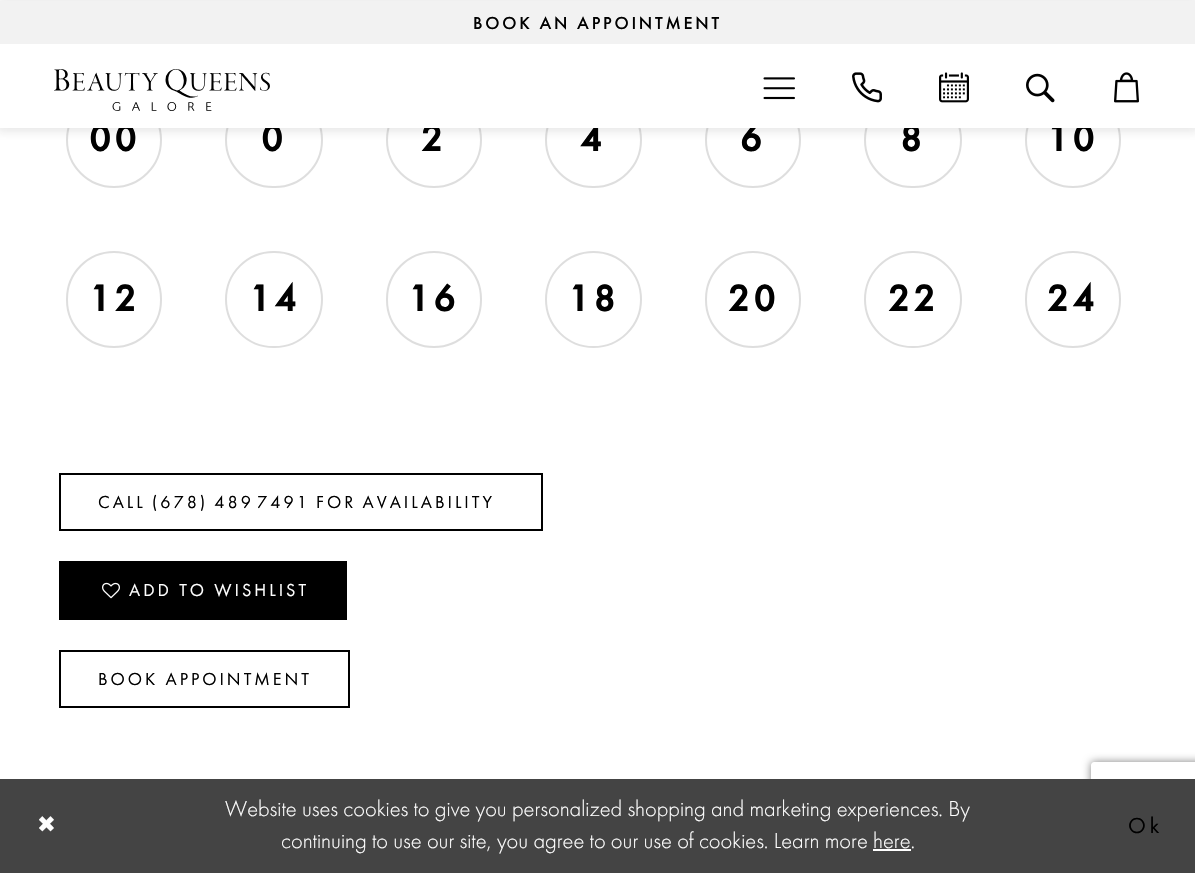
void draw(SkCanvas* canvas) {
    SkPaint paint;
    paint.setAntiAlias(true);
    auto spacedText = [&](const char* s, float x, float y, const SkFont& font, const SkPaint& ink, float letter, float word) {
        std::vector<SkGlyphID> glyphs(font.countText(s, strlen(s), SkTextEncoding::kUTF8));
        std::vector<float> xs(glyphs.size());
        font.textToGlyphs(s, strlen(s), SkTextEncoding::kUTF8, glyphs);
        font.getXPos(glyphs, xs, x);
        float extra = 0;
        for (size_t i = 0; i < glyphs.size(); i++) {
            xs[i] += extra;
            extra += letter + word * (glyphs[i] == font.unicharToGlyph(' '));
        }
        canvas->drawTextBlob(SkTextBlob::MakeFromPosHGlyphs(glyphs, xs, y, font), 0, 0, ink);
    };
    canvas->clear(0xFFFFFFFF);
    paint.setStyle(SkPaint::kStroke_Style);
    paint.setStrokeWidth(2);
    paint.setColor(0xFFDEDEDE);
    canvas->drawCircle(114, 140, 47, paint);
    canvas->drawRoundRect(SkRect::MakeXYWH(226, 93, 96, 94), 47, 47, paint);
    canvas->drawCircle(434, 140, 47, paint);
    canvas->drawRoundRect(SkRect::MakeXYWH(546, 93, 95, 94), 47, 47, paint);
    canvas->drawCircle(753, 140, 47, paint);
    canvas->drawRoundRect(SkRect::MakeXYWH(865, 93, 96, 94), 47, 47, paint);
    canvas->drawCircle(1073, 140, 47, paint);
    paint.setStyle(SkPaint::kFill_Style);
    paint.setColor(0x1A1E1E1E);
    paint.setMaskFilter(SkMaskFilter::MakeBlur(kNormal_SkBlurStyle, 4.5f));
    canvas->drawRect(SkRect::MakeXYWH(-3, -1, 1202, 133), paint);
    paint.setMaskFilter(nullptr);
    SkFont font1(fontMgr->matchFamilyStyle("Futura PT", SkFontStyle::Bold()), 38);
    font1.setSubpixel(true);
    paint.setColor(0xFF000000);
    spacedText("00", 89, 151, font1, paint, 4, 0);
    spacedText("0", 261, 151, font1, paint, 4, 0);
    spacedText("2", 421, 151, font1, paint, 4, 0);
    spacedText("4", 580, 151, font1, paint, 4, 0);
    spacedText("6", 740, 151, font1, paint, 4, 0);
    spacedText("8", 900, 151, font1, paint, 4, 0);
    spacedText("10", 1047, 151, font1, paint, 4, 0);
    paint.setColor(0xFFFFFFFF);
    canvas->drawRect(SkRect::MakeXYWH(0, 44, 1195, 84), paint);
    paint.setColor(0xFFF2F2F2);
    canvas->drawRect(SkRect::MakeXYWH(0, 1, 1195, 43), paint);
    SkFont font2(fontMgr->matchFamilyStyle("Futura PT", SkFontStyle(500, SkFontStyle::kNormal_Width, SkFontStyle::kUpright_Slant)), 18);
    font2.setSubpixel(true);
    paint.setColor(0xFF000000);
    spacedText("BOOK AN APPOINTMENT", 473, 29, font2, paint, 2.75f, 0);
    canvas->drawImageRect(SkImages::DeferredFromEncodedData(SkData::MakeFromFileName("img1.png")), SkRect::MakeXYWH(54, 69, 216, 42), SkSamplingOptions());
    canvas->drawImageRect(SkImages::DeferredFromEncodedData(SkData::MakeFromFileName("img2.png")), SkRect::MakeXYWH(763, 77, 32, 23), SkSamplingOptions());
    canvas->drawImageRect(SkImages::DeferredFromEncodedData(SkData::MakeFromFileName("img3.png")), SkRect::MakeXYWH(852, 72, 30, 31), SkSamplingOptions());
    canvas->drawImageRect(SkImages::DeferredFromEncodedData(SkData::MakeFromFileName("img4.png")), SkRect::MakeXYWH(939, 72, 30, 31), SkSamplingOptions());
    canvas->drawImageRect(SkImages::DeferredFromEncodedData(SkData::MakeFromFileName("img5.png")), SkRect::MakeXYWH(1026, 73, 29, 30), SkSamplingOptions());
    canvas->drawImageRect(SkImages::DeferredFromEncodedData(SkData::MakeFromFileName("img6.png")), SkRect::MakeXYWH(1114, 72, 25, 31), SkSamplingOptions());
    paint.setStyle(SkPaint::kStroke_Style);
    paint.setColor(0xFFDEDEDE);
    canvas->drawRoundRect(SkRect::MakeXYWH(67, 252, 94, 95), 47, 47, paint);
    paint.setStyle(SkPaint::kFill_Style);
    paint.setColor(0xFF000000);
    spacedText("12", 89, 311, font1, paint, 4, 0);
    paint.setStyle(SkPaint::kStroke_Style);
    paint.setColor(0xFFDEDEDE);
    canvas->drawRoundRect(SkRect::MakeXYWH(226, 252, 96, 95), 47.5f, 47.5f, paint);
    paint.setStyle(SkPaint::kFill_Style);
    paint.setColor(0xFF000000);
    spacedText("14", 249, 311, font1, paint, 4, 0);
    paint.setStyle(SkPaint::kStroke_Style);
    paint.setColor(0xFFDEDEDE);
    canvas->drawRoundRect(SkRect::MakeXYWH(387, 252, 94, 95), 47, 47, paint);
    paint.setStyle(SkPaint::kFill_Style);
    paint.setColor(0xFF000000);
    spacedText("16", 408, 311, font1, paint, 4, 0);
    paint.setStyle(SkPaint::kStroke_Style);
    paint.setColor(0xFFDEDEDE);
    canvas->drawCircle(593.5f, 299.5f, 47.5f, paint);
    paint.setStyle(SkPaint::kFill_Style);
    paint.setColor(0xFF000000);
    spacedText("18", 568, 311, font1, paint, 4, 0);
    paint.setStyle(SkPaint::kStroke_Style);
    paint.setColor(0xFFDEDEDE);
    canvas->drawRoundRect(SkRect::MakeXYWH(706, 252, 94, 95), 47, 47, paint);
    paint.setStyle(SkPaint::kFill_Style);
    paint.setColor(0xFF000000);
    spacedText("20", 728, 311, font1, paint, 4, 0);
    paint.setStyle(SkPaint::kStroke_Style);
    paint.setColor(0xFFDEDEDE);
    canvas->drawRoundRect(SkRect::MakeXYWH(865, 252, 96, 95), 47.5f, 47.5f, paint);
    paint.setStyle(SkPaint::kFill_Style);
    paint.setColor(0xFF000000);
    spacedText("22", 888, 311, font1, paint, 4, 0);
    paint.setStyle(SkPaint::kStroke_Style);
    paint.setColor(0xFFDEDEDE);
    canvas->drawRoundRect(SkRect::MakeXYWH(1026, 252, 94, 95), 47, 47, paint);
    paint.setStyle(SkPaint::kFill_Style);
    paint.setColor(0xFF000000);
    spacedText("24", 1047, 311, font1, paint, 4, 0);
    paint.setStyle(SkPaint::kStroke_Style);
    canvas->drawRect(SkRect::MakeXYWH(60, 474, 482, 56), paint);
    SkFont font3(fontMgr->matchFamilyStyle("Futura PT", SkFontStyle::Normal()), 18);
    font3.setSubpixel(true);
    paint.setStyle(SkPaint::kFill_Style);
    spacedText("CALL (678) 489‑7491 FOR AVAILABILITY", 98, 508, font3, paint, 3, -1);
    canvas->drawRect(SkRect::MakeXYWH(59, 561, 288, 59), paint);
    canvas->drawImageRect(SkImages::DeferredFromEncodedData(SkData::MakeFromFileName("img7.png")), SkRect::MakeXYWH(102, 582, 18, 17), SkSamplingOptions());
    paint.setColor(0xFFFFFFFF);
    spacedText("ADD TO WISHLIST", 129, 596, font3, paint, 3, 0);
    paint.setStyle(SkPaint::kStroke_Style);
    paint.setColor(0xFF000000);
    canvas->drawRect(SkRect::MakeXYWH(60, 651, 289, 56), paint);
    paint.setStyle(SkPaint::kFill_Style);
    spacedText("BOOK APPOINTMENT", 98, 685, font3, paint, 3, 0);
    canvas->save();
    canvas->clipPath(SkPathBuilder(SkPathFillType::kEvenOdd).moveTo(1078, 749).lineTo(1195, 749).lineTo(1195, 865).lineTo(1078, 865).close().moveTo(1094, 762).lineTo(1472, 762).cubicTo(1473.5f, 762, 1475, 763.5f, 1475, 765).lineTo(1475, 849).cubicTo(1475, 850.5f, 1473.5f, 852, 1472, 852).lineTo(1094, 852).cubicTo(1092.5f, 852, 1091, 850.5f, 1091, 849).lineTo(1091, 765).cubicTo(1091, 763.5f, 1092.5f, 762, 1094, 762).close().detach(), true);
    paint.setColor(0xFF808080);
    paint.setMaskFilter(SkMaskFilter::MakeBlur(kNormal_SkBlurStyle, 4));
    canvas->drawRoundRect(SkRect::MakeXYWH(1091, 762, 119, 90), 3, 3, paint);
    paint.setMaskFilter(nullptr);
    canvas->restore();
    paint.setColor(0xFF444444);
    canvas->drawRect(SkRect::MakeXYWH(0, 779, 1195, 94), paint);
    SkFont font4(fontMgr->matchFamilyStyle("DejaVu Sans", SkFontStyle::Normal()), 22.5f);
    font4.setSubpixel(true);
    paint.setColor(0xFFFFFFFF);
    spacedText("✖", 37, 832, font4, paint, 4, 0);
    SkFont font5(fontMgr->matchFamilyStyle("Futura PT", SkFontStyle(300, SkFontStyle::kNormal_Width, SkFontStyle::kUpright_Slant)), 22.5f);
    font5.setSubpixel(true);
    canvas->drawString("Website uses cookies to give you personalized shopping and marketing experiences. By", 225, 816, font5, paint);
    canvas->drawString("continuing to use our site, you agree to our use of cookies. Learn more here.", 281, 848, font5, paint);
    canvas->drawRect(SkRect::MakeXYWH(873, 849, 38, 2), paint);
    SkFont font6(fontMgr->matchFamilyStyle("Futura PT", SkFontStyle::Normal()), 22.5f);
    font6.setSubpixel(true);
    paint.setColor(0xFF000000);
    spacedText("Ok", 1128, 833, font6, paint, 4, 0);
}
